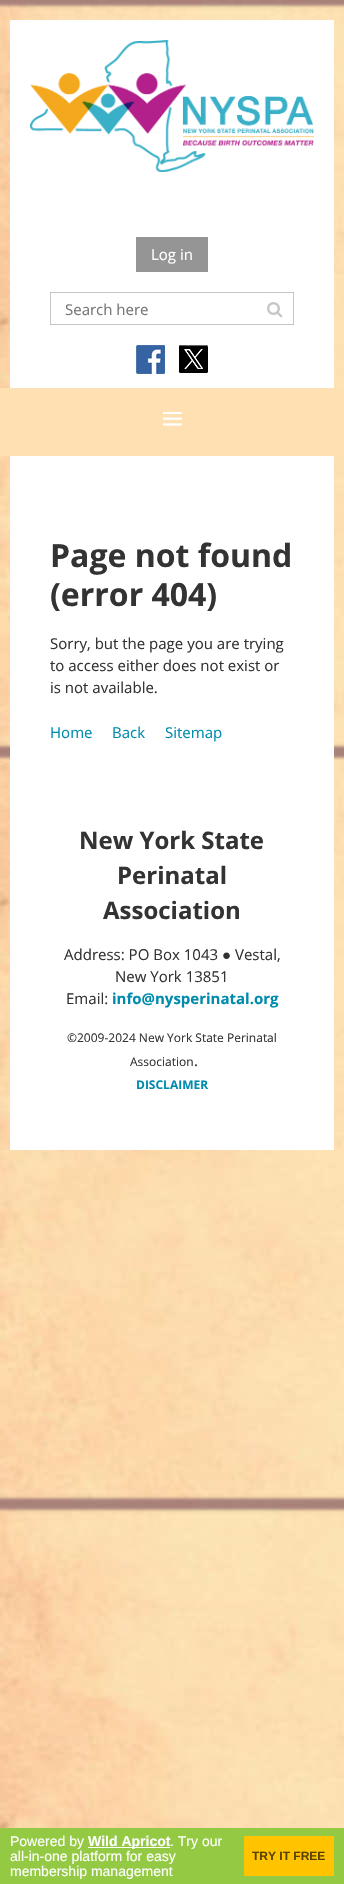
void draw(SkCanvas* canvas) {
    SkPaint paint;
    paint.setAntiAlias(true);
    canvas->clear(0xFFFFFFFF);
    canvas->drawImageRect(SkImages::DeferredFromEncodedData(SkData::MakeFromFileName("img1.png")), SkRect::MakeXYWH(0, 0, 344, 1828), SkSamplingOptions());
    canvas->drawImageRect(SkImages::DeferredFromEncodedData(SkData::MakeFromFileName("img2.png")), SkRect::MakeXYWH(10, 0, 324, 20), SkSamplingOptions());
    paint.setColor(0xFFFFFFFF);
    canvas->drawRect(SkRect::MakeXYWH(10, 20, 324, 368), paint);
    canvas->drawImageRect(SkImages::DeferredFromEncodedData(SkData::MakeFromFileName("img3.png")), SkRect::MakeXYWH(30, 40, 284, 132), SkSamplingOptions());
    paint.setColor(0xFF959595);
    canvas->drawRect(SkRect::MakeXYWH(136, 237, 72, 35), paint);
    SkFont font1(fontMgr->matchFamilyStyle("Open Sans", SkFontStyle::Normal()), 15);
    font1.setSubpixel(true);
    paint.setColor(0xFFFFFFFF);
    canvas->drawString("Log in", 151, 260, font1, paint);
    paint.setStyle(SkPaint::kStroke_Style);
    paint.setStrokeWidth(1);
    paint.setColor(0xFFC6C6C6);
    canvas->drawRect(SkRect::MakeXYWH(50.5f, 292.5f, 243, 32), paint);
    paint.setStyle(SkPaint::kFill_Style);
    paint.setColor(0xFF757575);
    canvas->drawString("Search here", 65, 315, font1, paint);
    canvas->drawImageRect(SkImages::DeferredFromEncodedData(SkData::MakeFromFileName("img4.png")), SkRect::MakeXYWH(267, 302, 16, 16), SkSamplingOptions());
    canvas->drawImageRect(SkImages::DeferredFromEncodedData(SkData::MakeFromFileName("img5.png")), SkRect::MakeXYWH(136, 345, 29, 29), SkSamplingOptions());
    canvas->drawImageRect(SkImages::DeferredFromEncodedData(SkData::MakeFromFileName("img6.png")), SkRect::MakeXYWH(179, 345, 29, 28), SkSamplingOptions());
    paint.setColor(0xFFFFFFFF);
    canvas->drawRect(SkRect::MakeXYWH(10, 456, 324, 307), paint);
    paint.setColor(0xFFFFE0B3);
    canvas->drawRect(SkRect::MakeXYWH(0, 388, 344, 68), paint);
    SkFont font2(fontMgr->matchFamilyStyle("Liberation Serif", SkFontStyle::Normal()), 40);
    font2.setSubpixel(true);
    paint.setColor(0xFFFFFFFF);
    canvas->drawString("≡", 161, 432, font2, paint);
    SkFont font3(fontMgr->matchFamilyStyle("Open Sans", SkFontStyle::Bold()), 32);
    font3.setSubpixel(true);
    paint.setColor(0xFF333333);
    canvas->drawString("Page not found", 50, 567, font3, paint);
    canvas->drawString("(error 404)", 50, 606, font3, paint);
    canvas->drawString("Sorry, but the page you are trying", 50, 649, font1, paint);
    canvas->drawString("to access either does not exist or", 50, 671, font1, paint);
    canvas->drawString("is not available.", 50, 693, font1, paint);
    paint.setColor(0xFF008BAE);
    canvas->drawString("Home", 50, 738, font1, paint);
    canvas->drawString("Back", 112, 738, font1, paint);
    canvas->drawString("Sitemap", 165, 738, font1, paint);
    canvas->drawImageRect(SkImages::DeferredFromEncodedData(SkData::MakeFromFileName("img7.png")), SkRect::MakeXYWH(0, 763, 344, 387), SkSamplingOptions());
    paint.setColor(0xFFFFFFFF);
    canvas->drawRect(SkRect::MakeXYWH(10, 763, 324, 387), paint);
    SkFont font4(fontMgr->matchFamilyStyle("Open Sans", SkFontStyle::Bold()), 24);
    font4.setSubpixel(true);
    paint.setColor(0xFF333333);
    canvas->drawString("New York State", 79, 849, font4, paint);
    canvas->drawString("Perinatal", 117, 884, font4, paint);
    canvas->drawString("Association", 103, 919, font4, paint);
    canvas->drawString("Address: PO Box 1043", 64, 960, font1, paint);
    SkFont font5(fontMgr->matchFamilyStyle("Liberation Serif", SkFontStyle::Normal()), 15);
    font5.setSubpixel(true);
    canvas->drawString("●", 222, 960, font5, paint);
    canvas->drawString("Vestal,", 235, 960, font1, paint);
    canvas->drawString("New York 13851", 115, 982, font1, paint);
    canvas->drawString("Email:", 66, 1004, font1, paint);
    SkFont font6(fontMgr->matchFamilyStyle("Open Sans", SkFontStyle::Bold()), 15);
    font6.setSubpixel(true);
    paint.setColor(0xFF008BAE);
    canvas->drawString("info@nysperinatal.org", 112, 1004, font6, paint);
    SkFont font7(fontMgr->matchFamilyStyle("Open Sans", SkFontStyle::Normal()), 12);
    font7.setSubpixel(true);
    paint.setColor(0xFF333333);
    canvas->drawString("©2009-2024 New York State Perinatal", 67, 1042, font7, paint);
    canvas->drawString("Association", 130, 1066, font7, paint);
    canvas->drawString(".", 194, 1066, font1, paint);
    SkFont font8(fontMgr->matchFamilyStyle("Open Sans", SkFontStyle::Bold()), 12);
    font8.setSubpixel(true);
    paint.setColor(0xFF008BAE);
    canvas->drawString("DISCLAIMER", 136, 1089, font8, paint);
    paint.setColor(0xFF94C943);
    canvas->drawRect(SkRect::MakeXYWH(0, 1828, 344, 56), paint);
    SkFont font9(fontMgr->matchFamilyStyle("Liberation Sans", SkFontStyle::Normal()), 14);
    font9.setSubpixel(true);
    paint.setColor(0xFFFFFFFF);
    canvas->drawString("Powered by", 10, 1846, font9, paint);
    canvas->drawRect(SkRect::MakeXYWH(88, 1847, 82, 1), paint);
    SkFont font10(fontMgr->matchFamilyStyle("Liberation Sans", SkFontStyle::Bold()), 14);
    font10.setSubpixel(true);
    canvas->drawString("Wild Apricot", 88, 1846, font10, paint);
    canvas->drawString(". Try our", 170, 1846, font9, paint);
    canvas->drawString("all-in-one platform for easy", 10, 1861, font9, paint);
    canvas->drawString("membership management", 10, 1876, font9, paint);
    paint.setColor(0xFFFFC300);
    canvas->drawRect(SkRect::MakeXYWH(244, 1836, 90, 40), paint);
    SkFont font11(fontMgr->matchFamilyStyle("Liberation Sans", SkFontStyle::Bold()), 12);
    font11.setSubpixel(true);
    paint.setColor(0xFF584100);
    canvas->drawString("TRY IT FREE", 252, 1860, font11, paint);
}
